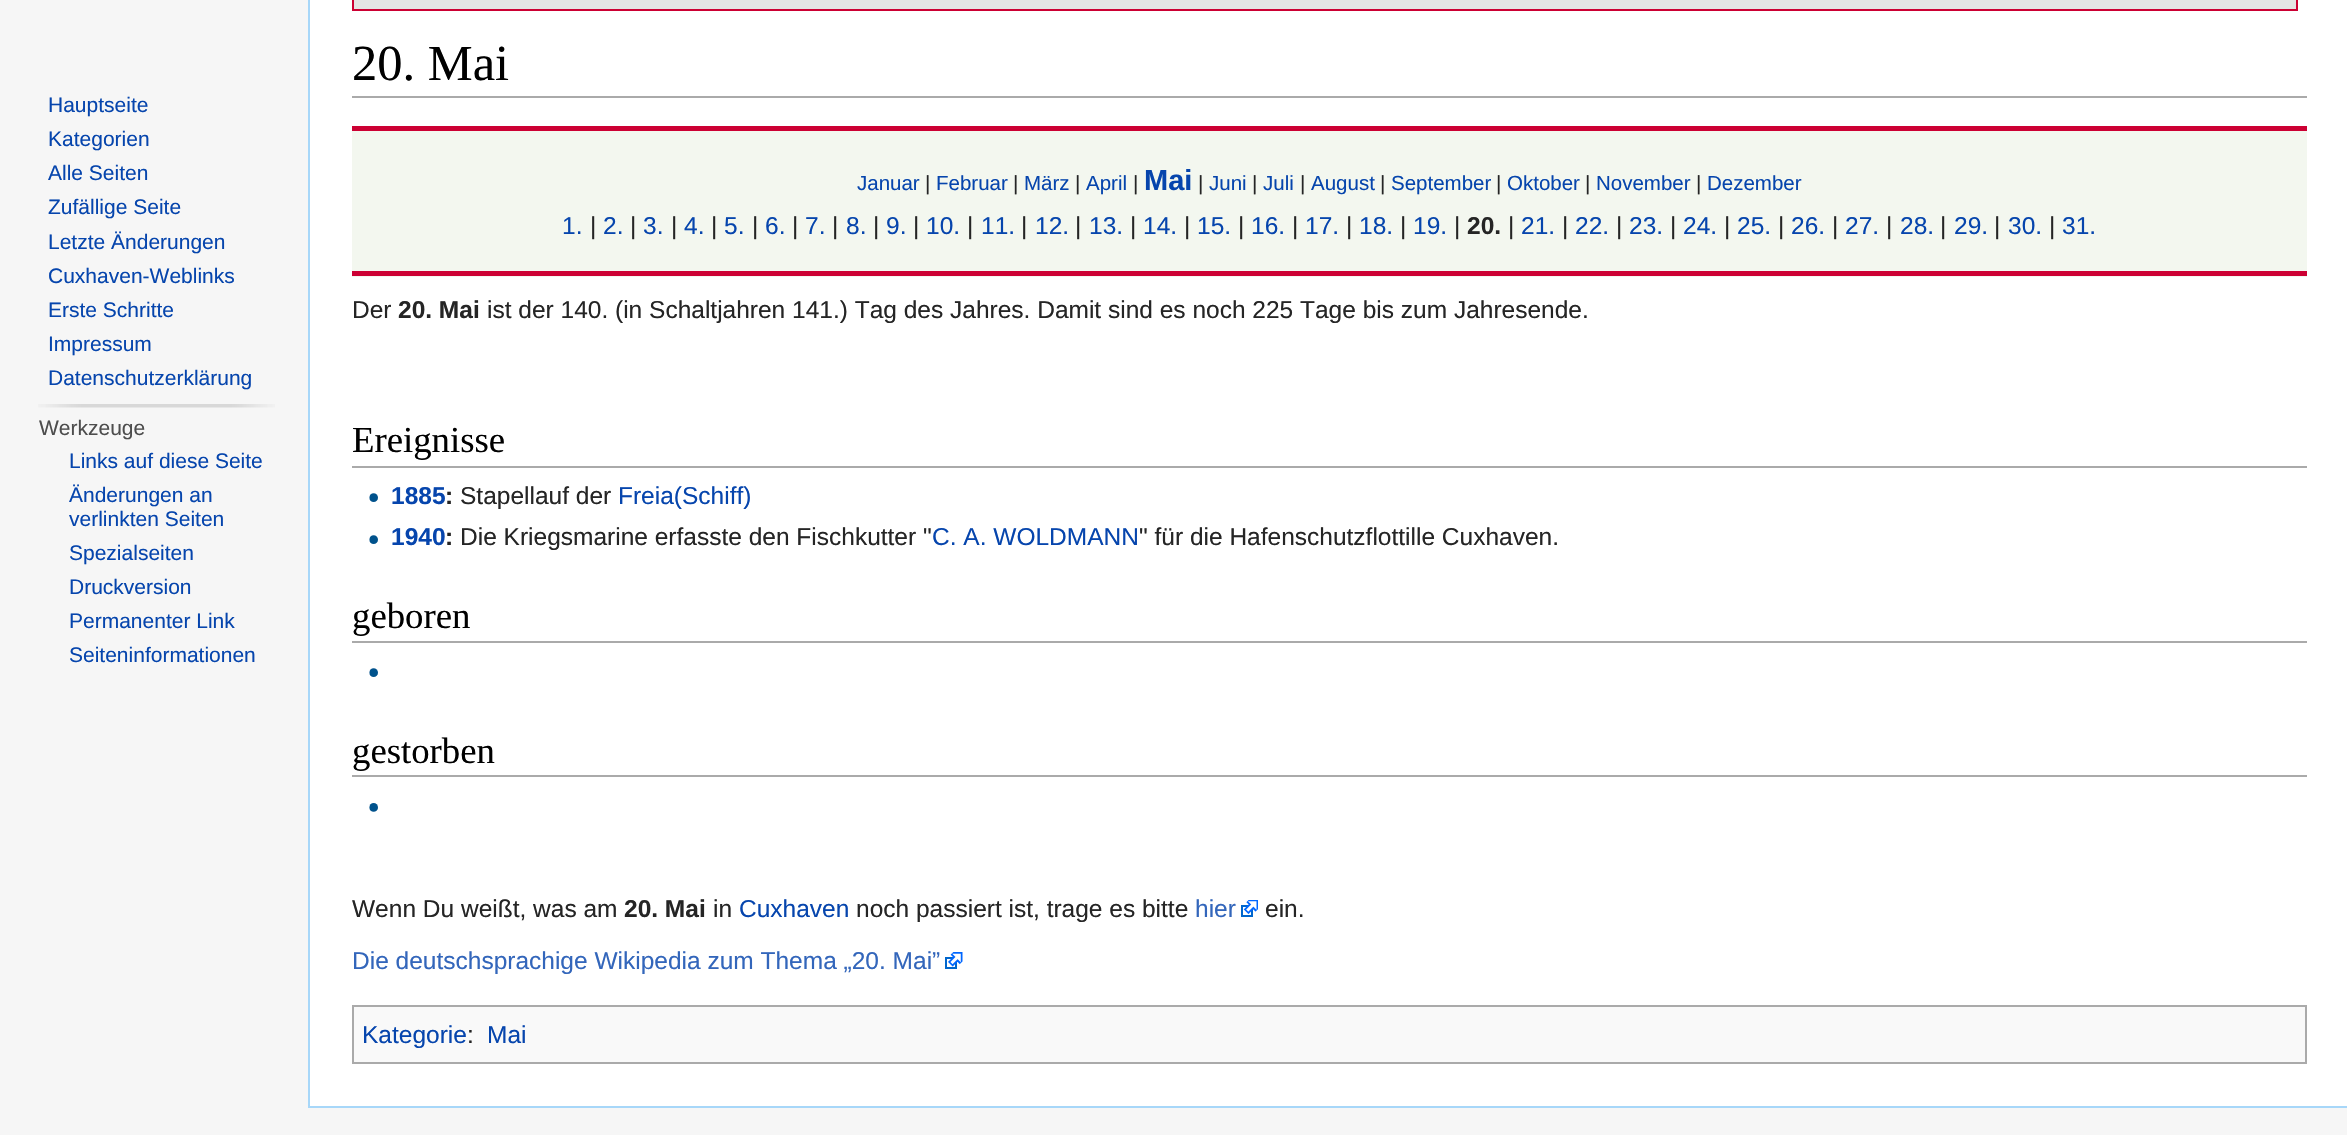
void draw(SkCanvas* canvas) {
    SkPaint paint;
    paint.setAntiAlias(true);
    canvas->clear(0xFFF6F6F6);
    SkFont font1(fontMgr->matchFamilyStyle("Liberation Sans", SkFontStyle::Normal()), 21);
    font1.setSubpixel(true);
    paint.setColor(0xFF0645AD);
    canvas->drawString("Hauptseite", 48, 112, font1, paint);
    canvas->drawString("Kategorien", 48, 146, font1, paint);
    canvas->drawString("Alle Seiten", 48, 180, font1, paint);
    canvas->drawString("Zufällige Seite", 48, 214, font1, paint);
    canvas->drawString("Letzte Änderungen", 48, 249, font1, paint);
    canvas->drawString("Cuxhaven-Weblinks", 48, 283, font1, paint);
    canvas->drawString("Erste Schritte", 48, 317, font1, paint);
    canvas->drawString("Impressum", 48, 351, font1, paint);
    canvas->drawString("Datenschutzerklärung", 48, 385, font1, paint);
    canvas->drawImageRect(SkImages::DeferredFromEncodedData(SkData::MakeFromFileName("img1.png")), SkRect::MakeXYWH(38, 404, 237, 4), SkSamplingOptions());
    paint.setColor(0xFF4D4D4D);
    canvas->drawString("Werkzeuge", 39, 435, font1, paint);
    paint.setColor(0xFF0645AD);
    canvas->drawString("Links auf diese Seite", 69, 468, font1, paint);
    canvas->drawString("Änderungen an", 69, 502, font1, paint);
    canvas->drawString("verlinkten Seiten", 69, 526, font1, paint);
    canvas->drawString("Spezialseiten", 69, 560, font1, paint);
    canvas->drawString("Druckversion", 69, 594, font1, paint);
    canvas->drawString("Permanenter Link", 69, 628, font1, paint);
    canvas->drawString("Seiteninformationen", 69, 662, font1, paint);
    paint.setColor(0xFFFFFFFF);
    canvas->drawRect(SkRect::MakeXYWH(310, 0, 2037, 1106), paint);
    paint.setColor(0xFFA7D7F9);
    canvas->drawRect(SkRect::MakeXYWH(308, 1106, 2039, 2), paint);
    canvas->drawRect(SkRect::MakeXYWH(308, 0, 2, 1108), paint);
    paint.setColor(0xFFE4E4E4);
    canvas->drawRect(SkRect::MakeXYWH(353, -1, 1944, 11), paint);
    paint.setStyle(SkPaint::kStroke_Style);
    paint.setStrokeWidth(2);
    paint.setColor(0xFFCC0033);
    canvas->drawRect(SkRect::MakeXYWH(353, -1, 1944, 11), paint);
    paint.setStyle(SkPaint::kFill_Style);
    paint.setColor(0xFFAAAAAA);
    canvas->drawRect(SkRect::MakeXYWH(352, 96, 1955, 2), paint);
    SkFont font2(fontMgr->matchFamilyStyle("Liberation Serif", SkFontStyle::Normal()), 50.5f);
    font2.setSubpixel(true);
    paint.setColor(0xFF000000);
    canvas->drawString("20. Mai", 352, 80, font2, paint);
    paint.setColor(0xFFF3F7EF);
    canvas->drawRect(SkRect::MakeXYWH(352, 131, 1955, 146), paint);
    paint.setColor(0xFFCC0033);
    canvas->drawRect(SkRect::MakeXYWH(352, 126, 1955, 5), paint);
    canvas->drawRect(SkRect::MakeXYWH(352, 271, 1955, 5), paint);
    SkFont font3(fontMgr->matchFamilyStyle("Liberation Sans", SkFontStyle::Normal()), 20.5f);
    font3.setSubpixel(true);
    paint.setColor(0xFF0645AD);
    canvas->drawString("Januar", 857, 190, font3, paint);
    paint.setColor(0xFF252525);
    canvas->drawString("|", 925, 190, font3, paint);
    paint.setColor(0xFF0645AD);
    canvas->drawString("Februar", 936, 190, font3, paint);
    paint.setColor(0xFF252525);
    canvas->drawString("|", 1013, 190, font3, paint);
    paint.setColor(0xFF0645AD);
    canvas->drawString("März", 1024, 190, font3, paint);
    paint.setColor(0xFF252525);
    canvas->drawString("|", 1075, 190, font3, paint);
    paint.setColor(0xFF0645AD);
    canvas->drawString("April", 1086, 190, font3, paint);
    paint.setColor(0xFF252525);
    canvas->drawString("|", 1133, 190, font3, paint);
    SkFont font4(fontMgr->matchFamilyStyle("Liberation Sans", SkFontStyle::Bold()), 29);
    font4.setSubpixel(true);
    paint.setColor(0xFF0645AD);
    canvas->drawString("Mai", 1144, 190, font4, paint);
    paint.setColor(0xFF252525);
    canvas->drawString("|", 1198, 190, font3, paint);
    paint.setColor(0xFF0645AD);
    canvas->drawString("Juni", 1209, 190, font3, paint);
    paint.setColor(0xFF252525);
    canvas->drawString("|", 1252, 190, font3, paint);
    paint.setColor(0xFF0645AD);
    canvas->drawString("Juli", 1263, 190, font3, paint);
    paint.setColor(0xFF252525);
    canvas->drawString("|", 1300, 190, font3, paint);
    paint.setColor(0xFF0645AD);
    canvas->drawString("August", 1311, 190, font3, paint);
    paint.setColor(0xFF252525);
    canvas->drawString("|", 1380, 190, font3, paint);
    paint.setColor(0xFF0645AD);
    canvas->drawString("September", 1391, 190, font3, paint);
    paint.setColor(0xFF252525);
    canvas->drawString("|", 1496, 190, font3, paint);
    paint.setColor(0xFF0645AD);
    canvas->drawString("Oktober", 1507, 190, font3, paint);
    paint.setColor(0xFF252525);
    canvas->drawString("|", 1585, 190, font3, paint);
    paint.setColor(0xFF0645AD);
    canvas->drawString("November", 1596, 190, font3, paint);
    paint.setColor(0xFF252525);
    canvas->drawString("|", 1696, 190, font3, paint);
    paint.setColor(0xFF0645AD);
    canvas->drawString("Dezember", 1707, 190, font3, paint);
    SkFont font5(fontMgr->matchFamilyStyle("Liberation Sans", SkFontStyle::Normal()), 24.5f);
    font5.setSubpixel(true);
    canvas->drawString("1.", 562, 234, font5, paint);
    paint.setColor(0xFF252525);
    canvas->drawString("|", 590, 234, font5, paint);
    paint.setColor(0xFF0645AD);
    canvas->drawString("2.", 603, 234, font5, paint);
    paint.setColor(0xFF252525);
    canvas->drawString("|", 630, 234, font5, paint);
    paint.setColor(0xFF0645AD);
    canvas->drawString("3.", 643, 234, font5, paint);
    paint.setColor(0xFF252525);
    canvas->drawString("|", 671, 234, font5, paint);
    paint.setColor(0xFF0645AD);
    canvas->drawString("4.", 684, 234, font5, paint);
    paint.setColor(0xFF252525);
    canvas->drawString("|", 711, 234, font5, paint);
    paint.setColor(0xFF0645AD);
    canvas->drawString("5.", 724, 234, font5, paint);
    paint.setColor(0xFF252525);
    canvas->drawString("|", 752, 234, font5, paint);
    paint.setColor(0xFF0645AD);
    canvas->drawString("6.", 765, 234, font5, paint);
    paint.setColor(0xFF252525);
    canvas->drawString("|", 792, 234, font5, paint);
    paint.setColor(0xFF0645AD);
    canvas->drawString("7.", 805, 234, font5, paint);
    paint.setColor(0xFF252525);
    canvas->drawString("|", 832, 234, font5, paint);
    paint.setColor(0xFF0645AD);
    canvas->drawString("8.", 846, 234, font5, paint);
    paint.setColor(0xFF252525);
    canvas->drawString("|", 873, 234, font5, paint);
    paint.setColor(0xFF0645AD);
    canvas->drawString("9.", 886, 234, font5, paint);
    paint.setColor(0xFF252525);
    canvas->drawString("|", 913, 234, font5, paint);
    paint.setColor(0xFF0645AD);
    canvas->drawString("10.", 926, 234, font5, paint);
    paint.setColor(0xFF252525);
    canvas->drawString("|", 967, 234, font5, paint);
    paint.setColor(0xFF0645AD);
    canvas->drawString("11.", 981, 234, font5, paint);
    paint.setColor(0xFF252525);
    canvas->drawString("|", 1021, 234, font5, paint);
    paint.setColor(0xFF0645AD);
    canvas->drawString("12.", 1035, 234, font5, paint);
    paint.setColor(0xFF252525);
    canvas->drawString("|", 1075, 234, font5, paint);
    paint.setColor(0xFF0645AD);
    canvas->drawString("13.", 1089, 234, font5, paint);
    paint.setColor(0xFF252525);
    canvas->drawString("|", 1130, 234, font5, paint);
    paint.setColor(0xFF0645AD);
    canvas->drawString("14.", 1143, 234, font5, paint);
    paint.setColor(0xFF252525);
    canvas->drawString("|", 1184, 234, font5, paint);
    paint.setColor(0xFF0645AD);
    canvas->drawString("15.", 1197, 234, font5, paint);
    paint.setColor(0xFF252525);
    canvas->drawString("|", 1238, 234, font5, paint);
    paint.setColor(0xFF0645AD);
    canvas->drawString("16.", 1251, 234, font5, paint);
    paint.setColor(0xFF252525);
    canvas->drawString("|", 1292, 234, font5, paint);
    paint.setColor(0xFF0645AD);
    canvas->drawString("17.", 1305, 234, font5, paint);
    paint.setColor(0xFF252525);
    canvas->drawString("|", 1346, 234, font5, paint);
    paint.setColor(0xFF0645AD);
    canvas->drawString("18.", 1359, 234, font5, paint);
    paint.setColor(0xFF252525);
    canvas->drawString("|", 1400, 234, font5, paint);
    paint.setColor(0xFF0645AD);
    canvas->drawString("19.", 1413, 234, font5, paint);
    paint.setColor(0xFF252525);
    canvas->drawString("|", 1454, 234, font5, paint);
    SkFont font6(fontMgr->matchFamilyStyle("Liberation Sans", SkFontStyle::Bold()), 24.5f);
    font6.setSubpixel(true);
    canvas->drawString("20.", 1467, 234, font6, paint);
    canvas->drawString("|", 1508, 234, font5, paint);
    paint.setColor(0xFF0645AD);
    canvas->drawString("21.", 1521, 234, font5, paint);
    paint.setColor(0xFF252525);
    canvas->drawString("|", 1562, 234, font5, paint);
    paint.setColor(0xFF0645AD);
    canvas->drawString("22.", 1575, 234, font5, paint);
    paint.setColor(0xFF252525);
    canvas->drawString("|", 1616, 234, font5, paint);
    paint.setColor(0xFF0645AD);
    canvas->drawString("23.", 1629, 234, font5, paint);
    paint.setColor(0xFF252525);
    canvas->drawString("|", 1670, 234, font5, paint);
    paint.setColor(0xFF0645AD);
    canvas->drawString("24.", 1683, 234, font5, paint);
    paint.setColor(0xFF252525);
    canvas->drawString("|", 1724, 234, font5, paint);
    paint.setColor(0xFF0645AD);
    canvas->drawString("25.", 1737, 234, font5, paint);
    paint.setColor(0xFF252525);
    canvas->drawString("|", 1778, 234, font5, paint);
    paint.setColor(0xFF0645AD);
    canvas->drawString("26.", 1791, 234, font5, paint);
    paint.setColor(0xFF252525);
    canvas->drawString("|", 1832, 234, font5, paint);
    paint.setColor(0xFF0645AD);
    canvas->drawString("27.", 1845, 234, font5, paint);
    paint.setColor(0xFF252525);
    canvas->drawString("|", 1886, 234, font5, paint);
    paint.setColor(0xFF0645AD);
    canvas->drawString("28.", 1900, 234, font5, paint);
    paint.setColor(0xFF252525);
    canvas->drawString("|", 1940, 234, font5, paint);
    paint.setColor(0xFF0645AD);
    canvas->drawString("29.", 1954, 234, font5, paint);
    paint.setColor(0xFF252525);
    canvas->drawString("|", 1994, 234, font5, paint);
    paint.setColor(0xFF0645AD);
    canvas->drawString("30.", 2008, 234, font5, paint);
    paint.setColor(0xFF252525);
    canvas->drawString("|", 2049, 234, font5, paint);
    paint.setColor(0xFF0645AD);
    canvas->drawString("31.", 2062, 234, font5, paint);
    paint.setColor(0xFF252525);
    canvas->drawString("Der", 352, 318, font5, paint);
    canvas->drawString("20. Mai", 398, 318, font6, paint);
    canvas->drawString("ist der 140. (in Schaltjahren 141.) Tag des Jahres. Damit sind es noch 225 Tage bis zum Jahresende.", 487, 318, font5, paint);
    paint.setColor(0xFFAAAAAA);
    canvas->drawRect(SkRect::MakeXYWH(352, 466, 1955, 2), paint);
    SkFont font7(fontMgr->matchFamilyStyle("Liberation Serif", SkFontStyle::Normal()), 36.75f);
    font7.setSubpixel(true);
    paint.setColor(0xFF000000);
    canvas->drawString("Ereignisse", 352, 452, font7, paint);
    canvas->drawImageRect(SkImages::DeferredFromEncodedData(SkData::MakeFromFileName("img2.png")), SkRect::MakeXYWH(369, 493, 9, 9), SkSamplingOptions());
    paint.setColor(0xFF0645AD);
    canvas->drawString("1885", 391, 504, font6, paint);
    paint.setColor(0xFF252525);
    canvas->drawString(":", 445, 504, font6, paint);
    canvas->drawString("Stapellauf der", 460, 504, font5, paint);
    paint.setColor(0xFF0645AD);
    canvas->drawString("Freia(Schiff)", 618, 504, font5, paint);
    canvas->drawImageRect(SkImages::DeferredFromEncodedData(SkData::MakeFromFileName("img3.png")), SkRect::MakeXYWH(369, 535, 9, 9), SkSamplingOptions());
    canvas->drawString("1940", 391, 545, font6, paint);
    paint.setColor(0xFF252525);
    canvas->drawString(":", 445, 545, font6, paint);
    canvas->drawString("Die Kriegsmarine erfasste den Fischkutter \"", 460, 545, font5, paint);
    paint.setColor(0xFF0645AD);
    canvas->drawString("C. A. WOLDMANN", 932, 545, font5, paint);
    paint.setColor(0xFF252525);
    canvas->drawString("\" für die Hafenschutzflottille Cuxhaven.", 1139, 545, font5, paint);
    paint.setColor(0xFFAAAAAA);
    canvas->drawRect(SkRect::MakeXYWH(352, 641, 1955, 2), paint);
    paint.setColor(0xFF000000);
    canvas->drawString("geboren", 352, 628, font7, paint);
    canvas->drawImageRect(SkImages::DeferredFromEncodedData(SkData::MakeFromFileName("img2.png")), SkRect::MakeXYWH(369, 668, 9, 9), SkSamplingOptions());
    paint.setColor(0xFFAAAAAA);
    canvas->drawRect(SkRect::MakeXYWH(352, 775, 1955, 2), paint);
    paint.setColor(0xFF000000);
    canvas->drawString("gestorben", 352, 763, font7, paint);
    canvas->drawImageRect(SkImages::DeferredFromEncodedData(SkData::MakeFromFileName("img4.png")), SkRect::MakeXYWH(369, 803, 9, 9), SkSamplingOptions());
    paint.setColor(0xFF252525);
    canvas->drawString("Wenn Du weißt, was am", 352, 917, font5, paint);
    canvas->drawString("20. Mai", 624, 917, font6, paint);
    canvas->drawString("in", 713, 917, font5, paint);
    paint.setColor(0xFF0645AD);
    canvas->drawString("Cuxhaven", 739, 917, font5, paint);
    paint.setColor(0xFF252525);
    canvas->drawString("noch passiert ist, trage es bitte", 856, 917, font5, paint);
    paint.setColor(0xFF3366BB);
    canvas->drawString("hier", 1195, 917, font5, paint);
    canvas->drawImageRect(SkImages::DeferredFromEncodedData(SkData::MakeFromFileName("img5.png")), SkRect::MakeXYWH(1241, 900, 17, 17), SkSamplingOptions());
    paint.setColor(0xFF252525);
    canvas->drawString("ein.", 1265, 917, font5, paint);
    paint.setColor(0xFF3366BB);
    canvas->drawString("Die deutschsprachige Wikipedia zum Thema „20. Mai”", 352, 969, font5, paint);
    canvas->drawImageRect(SkImages::DeferredFromEncodedData(SkData::MakeFromFileName("img6.png")), SkRect::MakeXYWH(945, 952, 18, 17), SkSamplingOptions());
    paint.setColor(0xFFF9F9F9);
    canvas->drawRect(SkRect::MakeXYWH(353, 1006, 1953, 57), paint);
    paint.setStyle(SkPaint::kStroke_Style);
    paint.setColor(0xFFAAAAAA);
    canvas->drawRect(SkRect::MakeXYWH(353, 1006, 1953, 57), paint);
    paint.setStyle(SkPaint::kFill_Style);
    paint.setColor(0xFF0645AD);
    canvas->drawString("Kategorie", 362, 1043, font5, paint);
    paint.setColor(0xFF252525);
    canvas->drawString(":", 467, 1043, font5, paint);
    paint.setColor(0xFF0645AD);
    canvas->drawString("Mai", 487, 1043, font5, paint);
}
